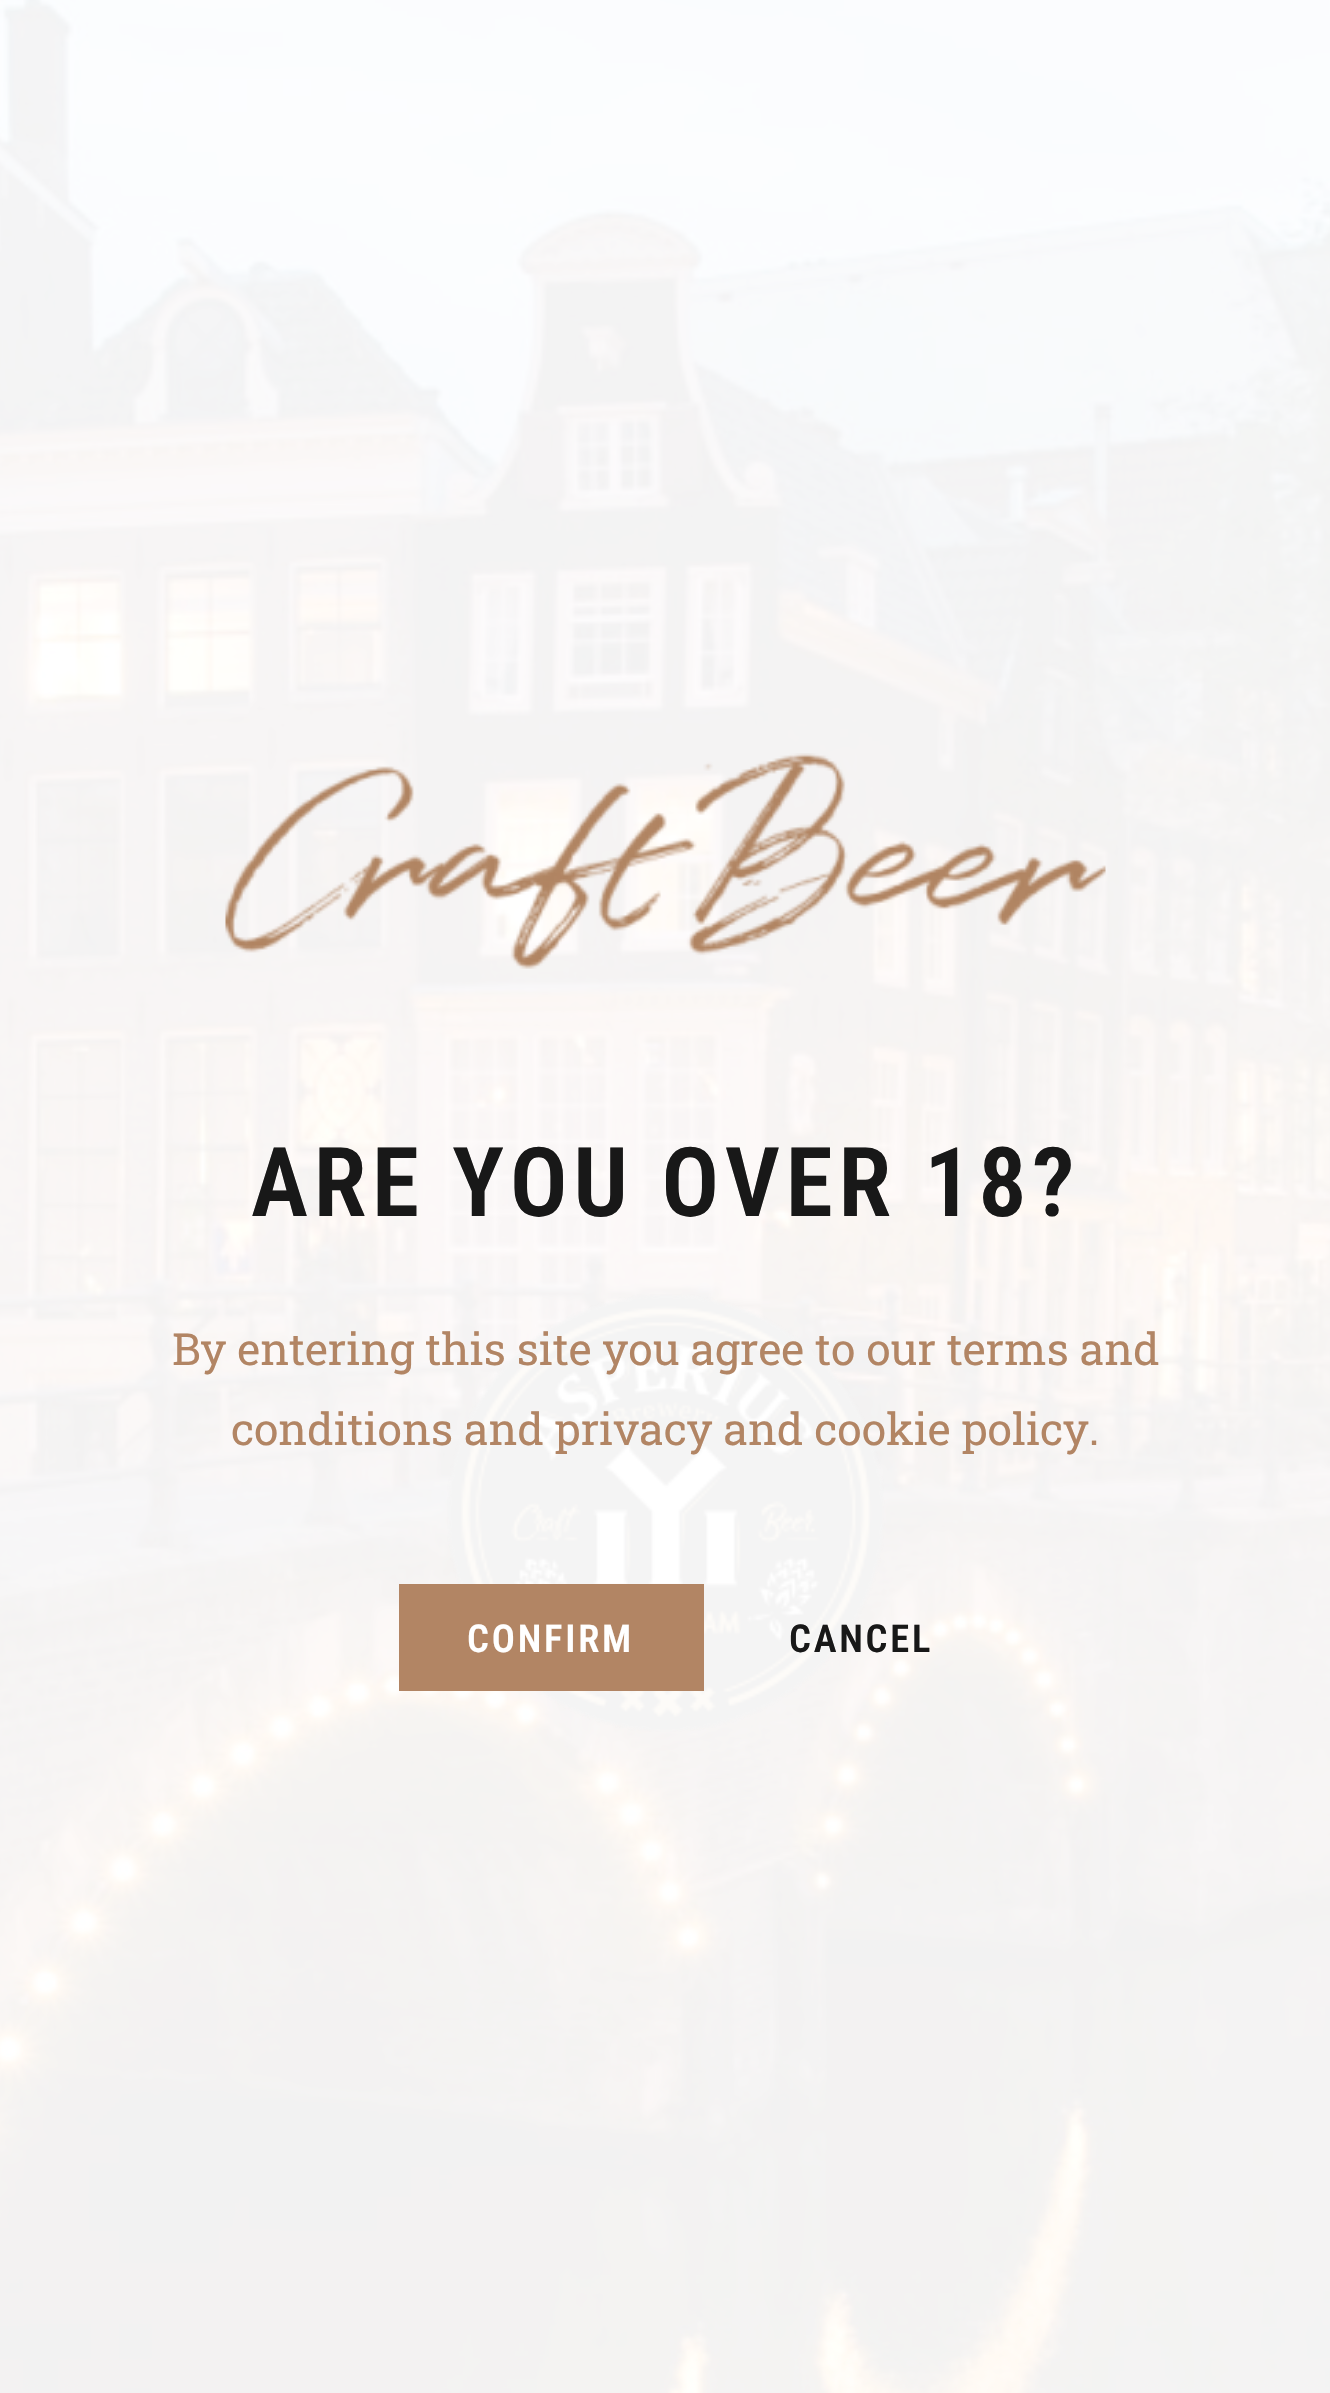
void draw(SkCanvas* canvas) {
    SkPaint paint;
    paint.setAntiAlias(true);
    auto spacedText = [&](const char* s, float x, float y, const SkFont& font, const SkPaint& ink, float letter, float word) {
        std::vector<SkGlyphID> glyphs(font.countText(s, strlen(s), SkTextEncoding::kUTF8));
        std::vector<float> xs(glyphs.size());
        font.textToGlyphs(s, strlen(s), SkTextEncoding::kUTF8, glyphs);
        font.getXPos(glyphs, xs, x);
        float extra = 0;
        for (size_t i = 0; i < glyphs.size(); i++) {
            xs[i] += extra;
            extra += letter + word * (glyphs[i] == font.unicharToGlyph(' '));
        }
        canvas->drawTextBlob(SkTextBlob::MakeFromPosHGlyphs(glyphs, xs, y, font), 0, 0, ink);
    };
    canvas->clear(0xFFFFFFFF);
    canvas->drawImageRect(SkImages::DeferredFromEncodedData(SkData::MakeFromFileName("img1.png")), SkRect::MakeXYWH(0, 0, 1330, 2393), SkSamplingOptions());
    canvas->drawImageRect(SkImages::DeferredFromEncodedData(SkData::MakeFromFileName("img2.png")), SkRect::MakeXYWH(447, 1294, 438, 438), SkSamplingOptions());
    canvas->drawImageRect(SkImages::DeferredFromEncodedData(SkData::MakeFromFileName("img3.png")), SkRect::MakeXYWH(225, 753, 881, 216), SkSamplingOptions());
    SkFont font1(fontMgr->matchFamilyStyle("Roboto Condensed", SkFontStyle(600, SkFontStyle::kNormal_Width, SkFontStyle::kUpright_Slant)), 96.25f);
    font1.setSubpixel(true);
    paint.setColor(0xFF181818);
    spacedText("ARE YOU OVER 18?", 251, 1216, font1, paint, 5.5f, 0);
    SkFont font2(fontMgr->matchFamilyStyle("Roboto Slab", SkFontStyle::Normal()), 44.25f);
    font2.setSubpixel(true);
    paint.setColor(0xFFB28564);
    canvas->drawString("By entering this site you agree to our terms and", 172, 1365, font2, paint);
    canvas->drawString("conditions and privacy and cookie policy.", 231, 1445, font2, paint);
    canvas->drawRect(SkRect::MakeXYWH(399, 1584, 305, 107), paint);
    SkFont font3(fontMgr->matchFamilyStyle("Roboto Condensed", SkFontStyle(600, SkFontStyle::kNormal_Width, SkFontStyle::kUpright_Slant)), 38.5f);
    font3.setSubpixel(true);
    paint.setColor(0xFFFFFFFF);
    spacedText("CONFIRM", 467, 1652, font3, paint, 2.75f, 0);
    paint.setColor(0xFF181818);
    spacedText("CANCEL", 789, 1652, font3, paint, 2.75f, 0);
}
